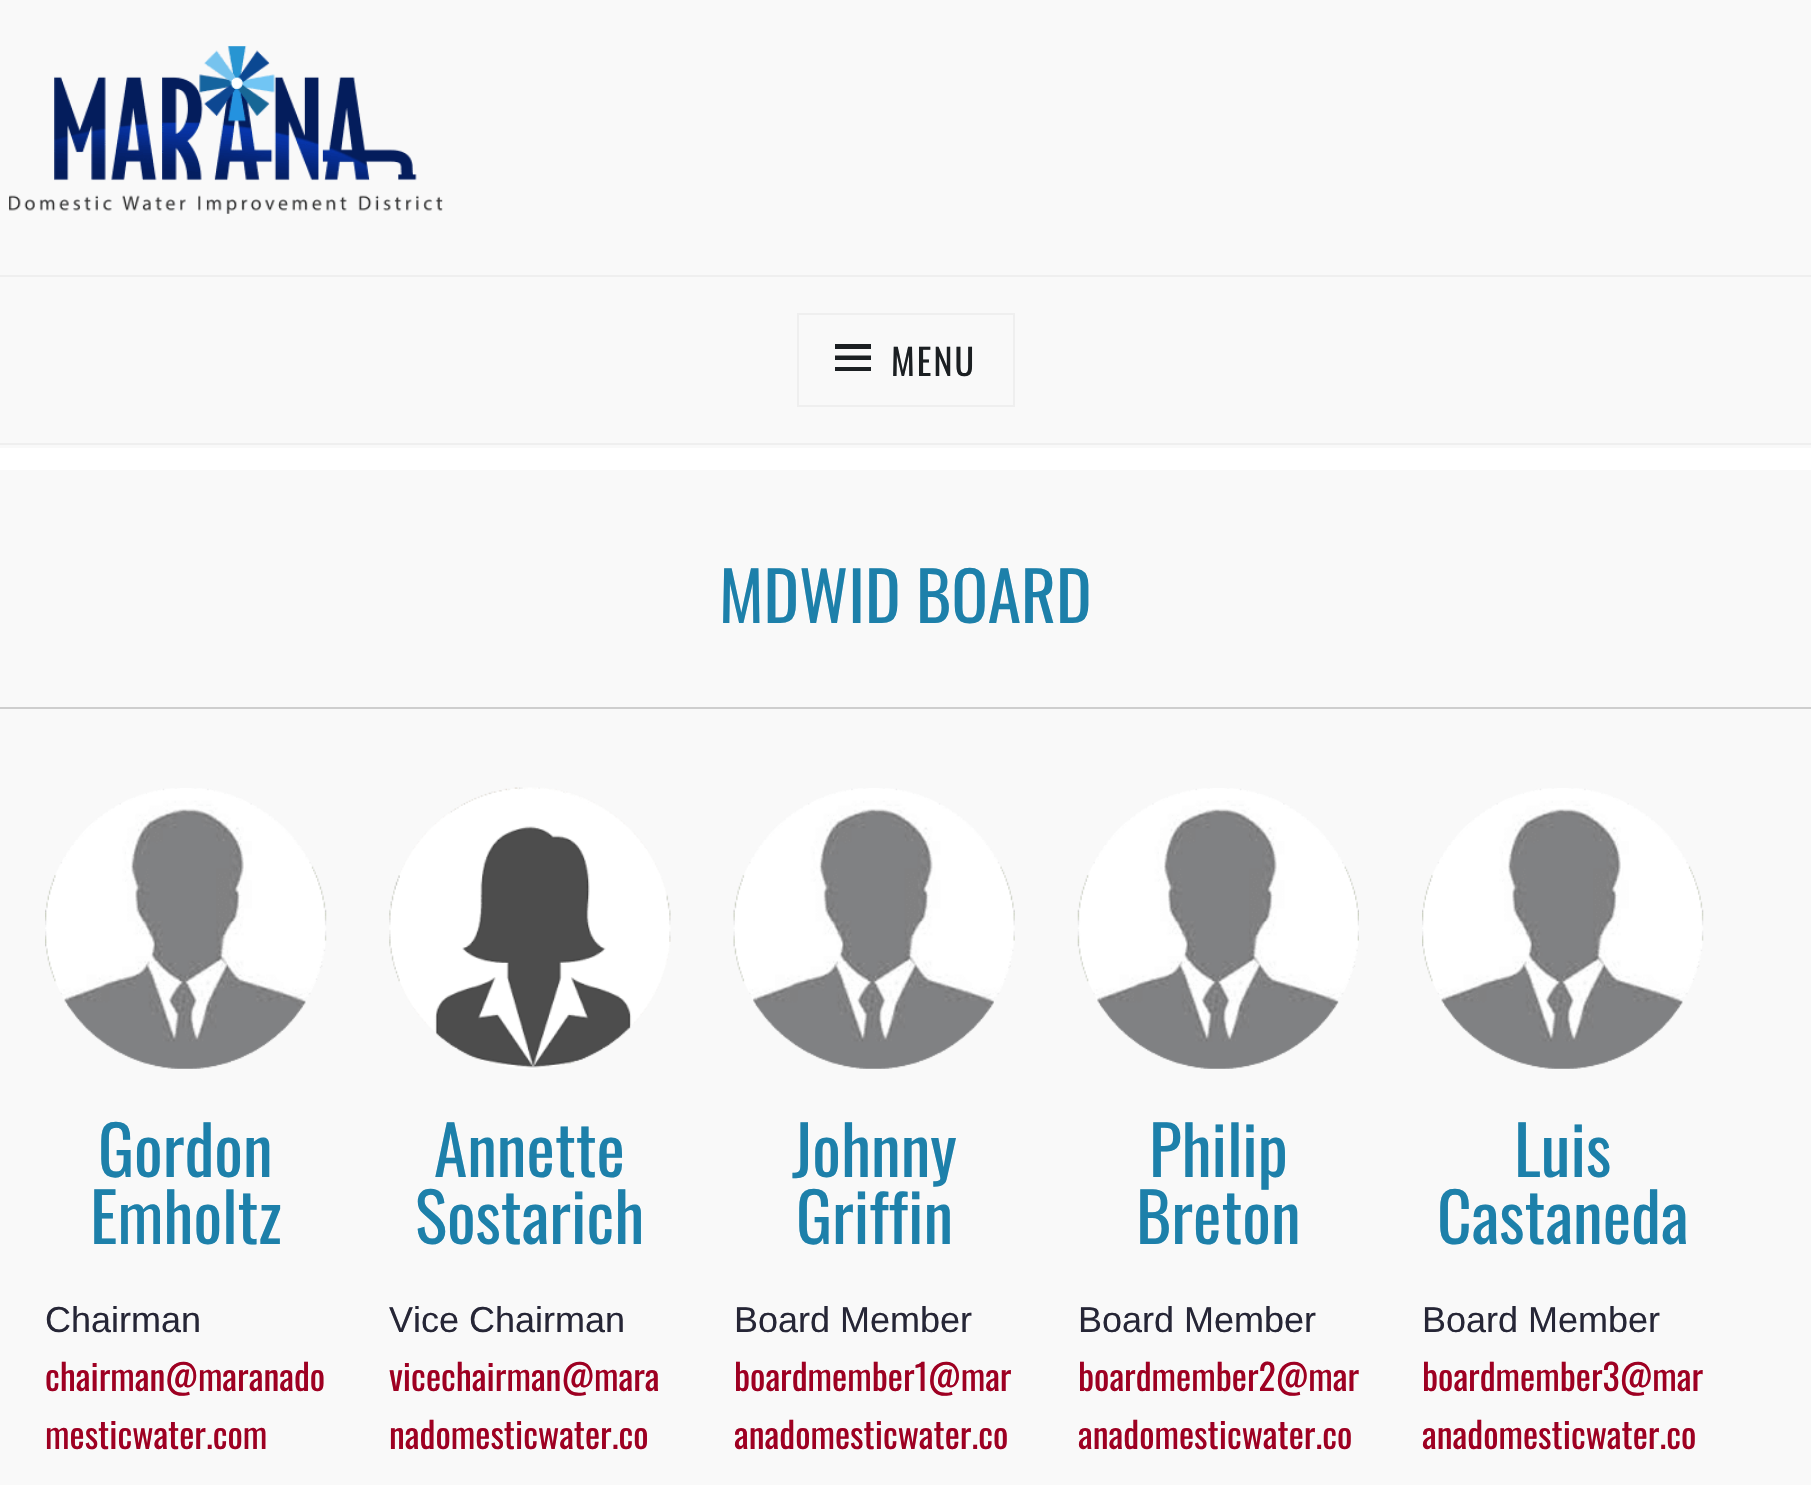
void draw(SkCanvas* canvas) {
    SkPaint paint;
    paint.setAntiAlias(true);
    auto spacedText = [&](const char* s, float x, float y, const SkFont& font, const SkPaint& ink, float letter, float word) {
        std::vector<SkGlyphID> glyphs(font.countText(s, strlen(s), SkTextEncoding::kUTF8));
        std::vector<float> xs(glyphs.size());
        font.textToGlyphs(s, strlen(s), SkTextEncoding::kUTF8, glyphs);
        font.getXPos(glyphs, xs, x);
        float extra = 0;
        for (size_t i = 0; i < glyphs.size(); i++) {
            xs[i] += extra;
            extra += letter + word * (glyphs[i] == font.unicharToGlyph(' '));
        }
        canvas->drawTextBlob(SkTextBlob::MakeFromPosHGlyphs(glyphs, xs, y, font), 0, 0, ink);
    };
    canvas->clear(0xFFF9F9F9);
    paint.setColor(0xFFFFFFFF);
    canvas->drawRect(SkRect::MakeXYWH(0, 448, 1811, 22), paint);
    canvas->drawImageRect(SkImages::DeferredFromEncodedData(SkData::MakeFromFileName("img1.png")), SkRect::MakeXYWH(9, 46, 434, 168), SkSamplingOptions());
    paint.setColor(0xFFEFEFEF);
    canvas->drawRect(SkRect::MakeXYWH(0, 275, 1811, 2), paint);
    canvas->drawRect(SkRect::MakeXYWH(0, 443, 1811, 2), paint);
    paint.setStyle(SkPaint::kStroke_Style);
    paint.setStrokeWidth(2);
    canvas->drawRect(SkRect::MakeXYWH(798, 314, 216, 92), paint);
    paint.setStyle(SkPaint::kFill_Style);
    paint.setColor(0xFF1B1F22);
    canvas->drawPath(SkPathBuilder().moveTo(835, 371).lineTo(835, 367).lineTo(871, 367).lineTo(871, 371).close().moveTo(835, 344).lineTo(871, 344).lineTo(871, 349).lineTo(835, 349).close().moveTo(835, 360).lineTo(835, 355.5f).lineTo(871, 355.5f).lineTo(871, 360).close().detach(), paint);
    SkFont font1(fontMgr->matchFamilyStyle("Oswald", SkFontStyle::Normal()), 36);
    font1.setSubpixel(true);
    spacedText("MENU", 891, 376, font1, paint, 2, 0);
    SkFont font2(fontMgr->matchFamilyStyle("Oswald", SkFontStyle::Normal()), 67.5f);
    font2.setSubpixel(true);
    paint.setColor(0xFF1D80AA);
    canvas->drawString("MDWID BOARD", 719, 623, font2, paint);
    paint.setColor(0xFFCECECE);
    canvas->drawRect(SkRect::MakeXYWH(0, 707, 1811, 2), paint);
    canvas->drawImageRect(SkImages::DeferredFromEncodedData(SkData::MakeFromFileName("img2.png")), SkRect::MakeXYWH(45, 788, 282, 281), SkSamplingOptions());
    paint.setColor(0xFF1D80AA);
    canvas->drawString("Gordon", 98, 1177, font2, paint);
    canvas->drawString("Emholtz", 90, 1244, font2, paint);
    SkFont font3(fontMgr->matchFamilyStyle("Liberation Sans", SkFontStyle::Normal()), 36);
    font3.setSubpixel(true);
    paint.setColor(0xFF262636);
    canvas->drawString("Chairman", 45, 1332, font3, paint);
    paint.setColor(0xFF9E0022);
    canvas->drawString("chairman@maranado", 45, 1391, font1, paint);
    canvas->drawString("mesticwater.com", 45, 1449, font1, paint);
    canvas->drawImageRect(SkImages::DeferredFromEncodedData(SkData::MakeFromFileName("img3.png")), SkRect::MakeXYWH(389, 787, 282, 282), SkSamplingOptions());
    paint.setColor(0xFF1D80AA);
    canvas->drawString("Annette", 434, 1177, font2, paint);
    canvas->drawString("Sostarich", 415, 1244, font2, paint);
    paint.setColor(0xFF262636);
    canvas->drawString("Vice Chairman", 389, 1332, font3, paint);
    paint.setColor(0xFF9E0022);
    canvas->drawString("vicechairman@mara", 389, 1391, font1, paint);
    canvas->drawString("nadomesticwater.co", 389, 1449, font1, paint);
    canvas->drawImageRect(SkImages::DeferredFromEncodedData(SkData::MakeFromFileName("img4.png")), SkRect::MakeXYWH(733, 788, 282, 281), SkSamplingOptions());
    paint.setColor(0xFF1D80AA);
    canvas->drawString("Johnny", 792, 1177, font2, paint);
    canvas->drawString("Griffin", 796, 1244, font2, paint);
    paint.setColor(0xFF262636);
    canvas->drawString("Board Member", 734, 1332, font3, paint);
    paint.setColor(0xFF9E0022);
    canvas->drawString("boardmember1@mar", 734, 1391, font1, paint);
    canvas->drawString("anadomesticwater.co", 734, 1449, font1, paint);
    canvas->drawImageRect(SkImages::DeferredFromEncodedData(SkData::MakeFromFileName("img5.png")), SkRect::MakeXYWH(1077, 788, 282, 281), SkSamplingOptions());
    paint.setColor(0xFF1D80AA);
    canvas->drawString("Philip", 1149, 1177, font2, paint);
    canvas->drawString("Breton", 1136, 1244, font2, paint);
    paint.setColor(0xFF262636);
    canvas->drawString("Board Member", 1078, 1332, font3, paint);
    paint.setColor(0xFF9E0022);
    canvas->drawString("boardmember2@mar", 1078, 1391, font1, paint);
    canvas->drawString("anadomesticwater.co", 1078, 1449, font1, paint);
    canvas->drawImageRect(SkImages::DeferredFromEncodedData(SkData::MakeFromFileName("img2.png")), SkRect::MakeXYWH(1422, 788, 282, 281), SkSamplingOptions());
    paint.setColor(0xFF1D80AA);
    canvas->drawString("Luis", 1514, 1177, font2, paint);
    canvas->drawString("Castaneda", 1437, 1244, font2, paint);
    paint.setColor(0xFF262636);
    canvas->drawString("Board Member", 1422, 1332, font3, paint);
    paint.setColor(0xFF9E0022);
    canvas->drawString("boardmember3@mar", 1422, 1391, font1, paint);
    canvas->drawString("anadomesticwater.co", 1422, 1449, font1, paint);
}
